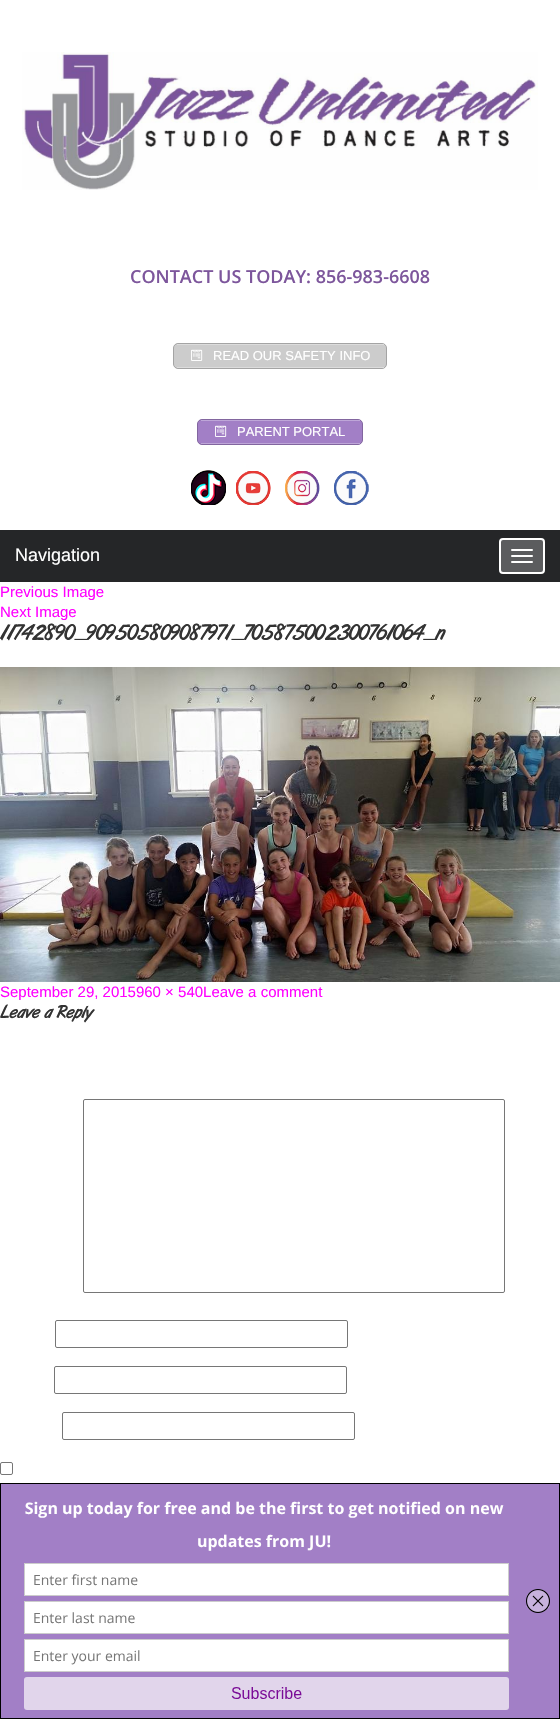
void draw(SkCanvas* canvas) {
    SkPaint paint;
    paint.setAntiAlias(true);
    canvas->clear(0xFFFFFFFF);
    canvas->drawImageRect(SkImages::DeferredFromEncodedData(SkData::MakeFromFileName("img1.png")), SkRect::MakeXYWH(22, 52, 516, 138), SkSamplingOptions());
    SkFont font1(fontMgr->matchFamilyStyle("Open Sans", SkFontStyle(600, SkFontStyle::kNormal_Width, SkFontStyle::kUpright_Slant)), 18);
    font1.setSubpixel(true);
    paint.setColor(0xFF7D569C);
    canvas->drawString("CONTACT US TODAY: 856-983-6608", 130, 283, font1, paint);
    paint.setColor(0xFFCCCCCC);
    canvas->drawRoundRect(SkRect::MakeXYWH(173.5f, 343.5f, 213, 25), 4.5f, 4.5f, paint);
    paint.setStyle(SkPaint::kStroke_Style);
    paint.setStrokeWidth(1);
    paint.setColor(0xFFA4A4A4);
    canvas->drawRoundRect(SkRect::MakeXYWH(173.5f, 343.5f, 213, 25), 4.5f, 4.5f, paint);
    paint.setStyle(SkPaint::kFill_Style);
    paint.setColor(0xFFDCDCDC);
    canvas->drawRect(SkRect::MakeXYWH(177, 344, 207, 1), paint);
    canvas->drawRect(SkRect::MakeXYWH(177, 367, 207, 1), paint);
    canvas->drawImageRect(SkImages::DeferredFromEncodedData(SkData::MakeFromFileName("img2.png")), SkRect::MakeXYWH(191, 349, 12, 12), SkSamplingOptions());
    SkFont font2(fontMgr->matchFamilyStyle("Liberation Sans", SkFontStyle::Normal()), 13);
    font2.setSubpixel(true);
    paint.setColor(0xFFFFFFFF);
    canvas->drawString("READ OUR SAFETY INFO", 213, 360, font2, paint);
    paint.setColor(0xFFA27FC6);
    canvas->drawRoundRect(SkRect::MakeXYWH(197.5f, 419.5f, 165, 25), 4.5f, 4.5f, paint);
    paint.setStyle(SkPaint::kStroke_Style);
    paint.setColor(0xFF82669F);
    canvas->drawRoundRect(SkRect::MakeXYWH(197.5f, 419.5f, 165, 25), 4.5f, 4.5f, paint);
    paint.setStyle(SkPaint::kFill_Style);
    paint.setColor(0xFFBEA6D8);
    canvas->drawRect(SkRect::MakeXYWH(201, 420, 159, 1), paint);
    canvas->drawRect(SkRect::MakeXYWH(201, 443, 159, 1), paint);
    canvas->drawImageRect(SkImages::DeferredFromEncodedData(SkData::MakeFromFileName("img3.png")), SkRect::MakeXYWH(215, 425, 12, 12), SkSamplingOptions());
    paint.setColor(0xFFFFFFFF);
    canvas->drawString("PARENT PORTAL", 237, 436, font2, paint);
    canvas->drawImageRect(SkImages::DeferredFromEncodedData(SkData::MakeFromFileName("img4.png")), SkRect::MakeXYWH(191, 470, 35, 35), SkSamplingOptions());
    canvas->drawImageRect(SkImages::DeferredFromEncodedData(SkData::MakeFromFileName("img5.png")), SkRect::MakeXYWH(236, 471, 35, 34), SkSamplingOptions());
    canvas->drawImageRect(SkImages::DeferredFromEncodedData(SkData::MakeFromFileName("img6.png")), SkRect::MakeXYWH(285, 471, 35, 34), SkSamplingOptions());
    canvas->drawImageRect(SkImages::DeferredFromEncodedData(SkData::MakeFromFileName("img7.png")), SkRect::MakeXYWH(334, 471, 35, 34), SkSamplingOptions());
    paint.setColor(0xFF252628);
    canvas->drawRect(SkRect::MakeXYWH(0, 530, 560, 52), paint);
    SkFont font3(fontMgr->matchFamilyStyle("Liberation Sans", SkFontStyle::Normal()), 18);
    font3.setSubpixel(true);
    paint.setColor(0xFFFFFFFF);
    canvas->drawString("Navigation", 15, 561, font3, paint);
    paint.setColor(0xFF5B5C5E);
    canvas->drawRoundRect(SkRect::MakeXYWH(500, 539, 44, 34), 3, 3, paint);
    paint.setStyle(SkPaint::kStroke_Style);
    paint.setStrokeWidth(2);
    paint.setColor(0xFFFFFFFF);
    canvas->drawRoundRect(SkRect::MakeXYWH(500, 539, 44, 34), 3, 3, paint);
    paint.setStyle(SkPaint::kFill_Style);
    canvas->drawRoundRect(SkRect::MakeXYWH(511, 549, 22, 2), 1, 1, paint);
    canvas->drawRoundRect(SkRect::MakeXYWH(511, 555, 22, 2), 1, 1, paint);
    canvas->drawRoundRect(SkRect::MakeXYWH(511, 561, 22, 2), 1, 1, paint);
    SkFont font4(fontMgr->matchFamilyStyle("Liberation Sans", SkFontStyle::Normal()), 15);
    font4.setSubpixel(true);
    paint.setColor(0xFFFF00FF);
    canvas->drawString("Previous Image", 0, 597, font4, paint);
    canvas->drawString("Next Image", 0, 617, font4, paint);
    SkFont font5(fontMgr->matchFamilyStyle("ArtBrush", SkFontStyle::Normal()), 22);
    font5.setSubpixel(true);
    paint.setColor(0xFF333333);
    canvas->drawString("11742890_909505809087971_705875002300761064_n", 0, 640, font5, paint);
    canvas->drawImageRect(SkImages::DeferredFromEncodedData(SkData::MakeFromFileName("img8.png")), SkRect::MakeXYWH(0, 667, 560, 315), SkSamplingOptions());
    paint.setColor(0xFFFF00FF);
    canvas->drawString("September 29, 2015960 × 540Leave a comment", 0, 997, font4, paint);
    SkFont font6(fontMgr->matchFamilyStyle("ArtBrush", SkFontStyle::Normal()), 18);
    font6.setSubpixel(true);
    paint.setColor(0xFF333333);
    canvas->drawString("Leave a Reply", 0, 1018, font6, paint);
    paint.setStyle(SkPaint::kStroke_Style);
    paint.setStrokeWidth(1);
    paint.setColor(0xFF767676);
    canvas->drawRoundRect(SkRect::MakeXYWH(83.5f, 1099.5f, 421, 193), 1.5f, 1.5f, paint);
    canvas->drawRoundRect(SkRect::MakeXYWH(55.5f, 1320.5f, 292, 27), 1.5f, 1.5f, paint);
    canvas->drawRoundRect(SkRect::MakeXYWH(54.5f, 1366.5f, 292, 27), 1.5f, 1.5f, paint);
    canvas->drawRoundRect(SkRect::MakeXYWH(62.5f, 1412.5f, 292, 27), 1.5f, 1.5f, paint);
    canvas->drawRoundRect(SkRect::MakeXYWH(0.5f, 1462.5f, 12, 12), 1.5f, 1.5f, paint);
    canvas->drawImageRect(SkImages::DeferredFromEncodedData(SkData::MakeFromFileName("img9.png")), SkRect::MakeXYWH(0, 1483, 560, 236), SkSamplingOptions());
}
